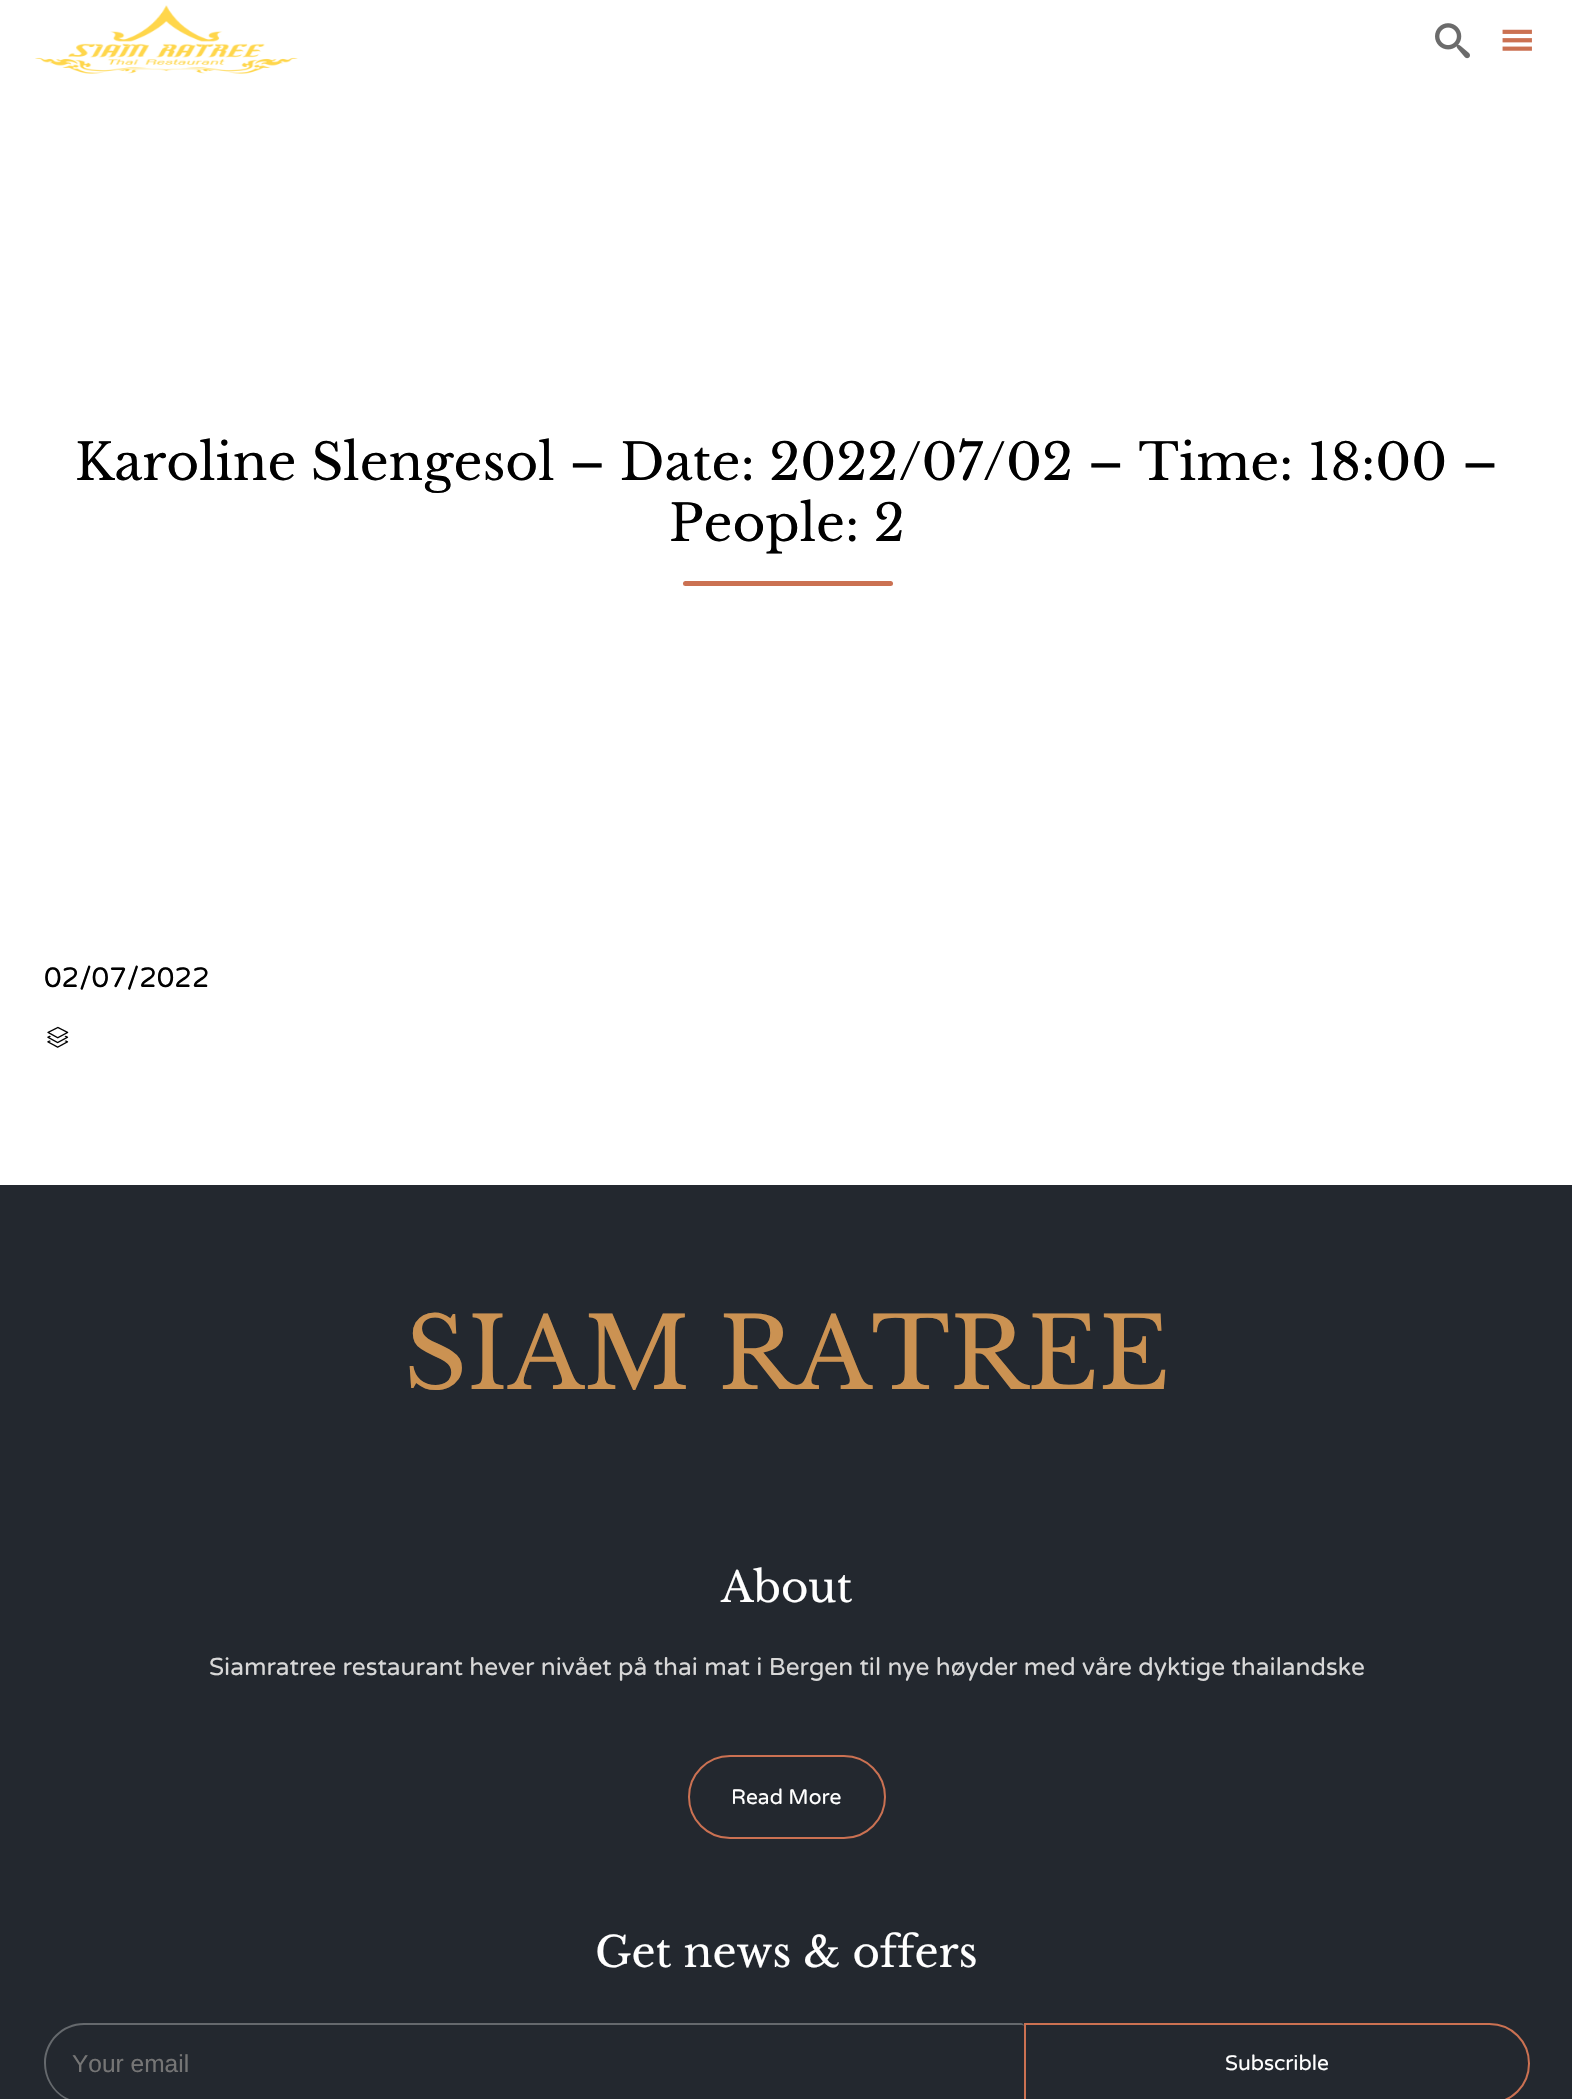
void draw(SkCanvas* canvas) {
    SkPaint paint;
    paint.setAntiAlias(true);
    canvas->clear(0xFFFFFFFF);
    canvas->drawImageRect(SkImages::DeferredFromEncodedData(SkData::MakeFromFileName("img1.png")), SkRect::MakeXYWH(35, 5, 263, 69), SkSamplingOptions());
    canvas->drawImageRect(SkImages::DeferredFromEncodedData(SkData::MakeFromFileName("img2.png")), SkRect::MakeXYWH(1435, 23, 35, 36), SkSamplingOptions());
    canvas->drawImageRect(SkImages::DeferredFromEncodedData(SkData::MakeFromFileName("img3.png")), SkRect::MakeXYWH(1502, 29, 30, 22), SkSamplingOptions());
    SkFont font1(fontMgr->matchFamilyStyle("Libre Baskerville", SkFontStyle::Normal()), 50.4f);
    font1.setSubpixel(true);
    paint.setColor(0xFF000000);
    canvas->drawString("Karoline Slengesol – Date: 2022/07/02 – Time: 18:00 –", 75, 480, font1, paint);
    canvas->drawString("People: 2", 669, 541, font1, paint);
    paint.setColor(0xFFCB7152);
    canvas->drawRoundRect(SkRect::MakeXYWH(683, 581, 210, 5), 2.5f, 2.5f, paint);
    SkFont font2(fontMgr->matchFamilyStyle("Varela Round", SkFontStyle::Normal()), 28);
    font2.setSubpixel(true);
    paint.setColor(0xFF000000);
    canvas->drawString("02/07/2022", 44, 987, font2, paint);
    canvas->drawImageRect(SkImages::DeferredFromEncodedData(SkData::MakeFromFileName("img4.png")), SkRect::MakeXYWH(47, 1026, 22, 22), SkSamplingOptions());
    paint.setColor(0xFF23282F);
    canvas->drawRect(SkRect::MakeXYWH(0, 1185, 1572, 914), paint);
    SkFont font3(fontMgr->matchFamilyStyle("Libre Baskerville", SkFontStyle::Normal()), 98);
    font3.setSubpixel(true);
    paint.setColor(0xFFCB9252);
    canvas->drawString("SIAM RATREE", 404, 1389, font3, paint);
    SkFont font4(fontMgr->matchFamilyStyle("Libre Baskerville", SkFontStyle::Normal()), 42);
    font4.setSubpixel(true);
    paint.setColor(0xFFFFFFFF);
    canvas->drawString("About", 721, 1602, font4, paint);
    SkFont font5(fontMgr->matchFamilyStyle("Varela Round", SkFontStyle::Normal()), 24.5f);
    font5.setSubpixel(true);
    paint.setColor(0xFFD8D8D8);
    canvas->drawString("Siamratree restaurant hever nivået på thai mat i Bergen til nye høyder med våre dyktige thailandske", 209, 1675, font5, paint);
    paint.setStyle(SkPaint::kStroke_Style);
    paint.setStrokeWidth(2);
    paint.setColor(0xFFCB7152);
    canvas->drawRoundRect(SkRect::MakeXYWH(689, 1756, 196, 82), 41, 41, paint);
    SkFont font6(fontMgr->matchFamilyStyle("Varela Round", SkFontStyle::Normal()), 21);
    font6.setSubpixel(true);
    paint.setStyle(SkPaint::kFill_Style);
    paint.setColor(0xFFFFFFFF);
    canvas->drawString("Read More", 731, 1804, font6, paint);
    canvas->drawString("Get news & offers", 595, 1967, font4, paint);
    paint.setColor(0xFF65696D);
    canvas->drawPath(SkPathBuilder(SkPathFillType::kEvenOdd).moveTo(84, 2023).lineTo(1021, 2023).cubicTo(1022, 2023, 1024, 2024, 1024, 2026).lineTo(1024, 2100).cubicTo(1024, 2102, 1022, 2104, 1021, 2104).lineTo(84, 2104).cubicTo(62, 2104, 44, 2085, 44, 2063).cubicTo(44, 2041, 62, 2023, 84, 2023).close().moveTo(84, 2025).lineTo(1021, 2025).cubicTo(1022, 2025, 1024, 2025, 1024, 2026).lineTo(1024, 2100).cubicTo(1024, 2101, 1022, 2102, 1021, 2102).lineTo(84, 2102).cubicTo(63, 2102, 46, 2085, 46, 2063).cubicTo(46, 2042, 63, 2025, 84, 2025).close().detach(), paint);
    SkFont font7(fontMgr->matchFamilyStyle("Liberation Sans", SkFontStyle::Normal()), 24.5f);
    font7.setSubpixel(true);
    paint.setColor(0xFF757575);
    canvas->drawString("Your email", 72, 2072, font7, paint);
    paint.setStyle(SkPaint::kStroke_Style);
    paint.setColor(0xFFCB7152);
    canvas->drawPath(SkPathBuilder().moveTo(1025, 2024).lineTo(1489.5f, 2024).cubicTo(1511.5f, 2024, 1529, 2041.5f, 1529, 2063.5f).cubicTo(1529, 2085.5f, 1511.5f, 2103, 1489.5f, 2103).lineTo(1025, 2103).close().detach(), paint);
    paint.setStyle(SkPaint::kFill_Style);
    paint.setColor(0xFFFFFFFF);
    canvas->drawString("Subscrible", 1225, 2070, font6, paint);
}
